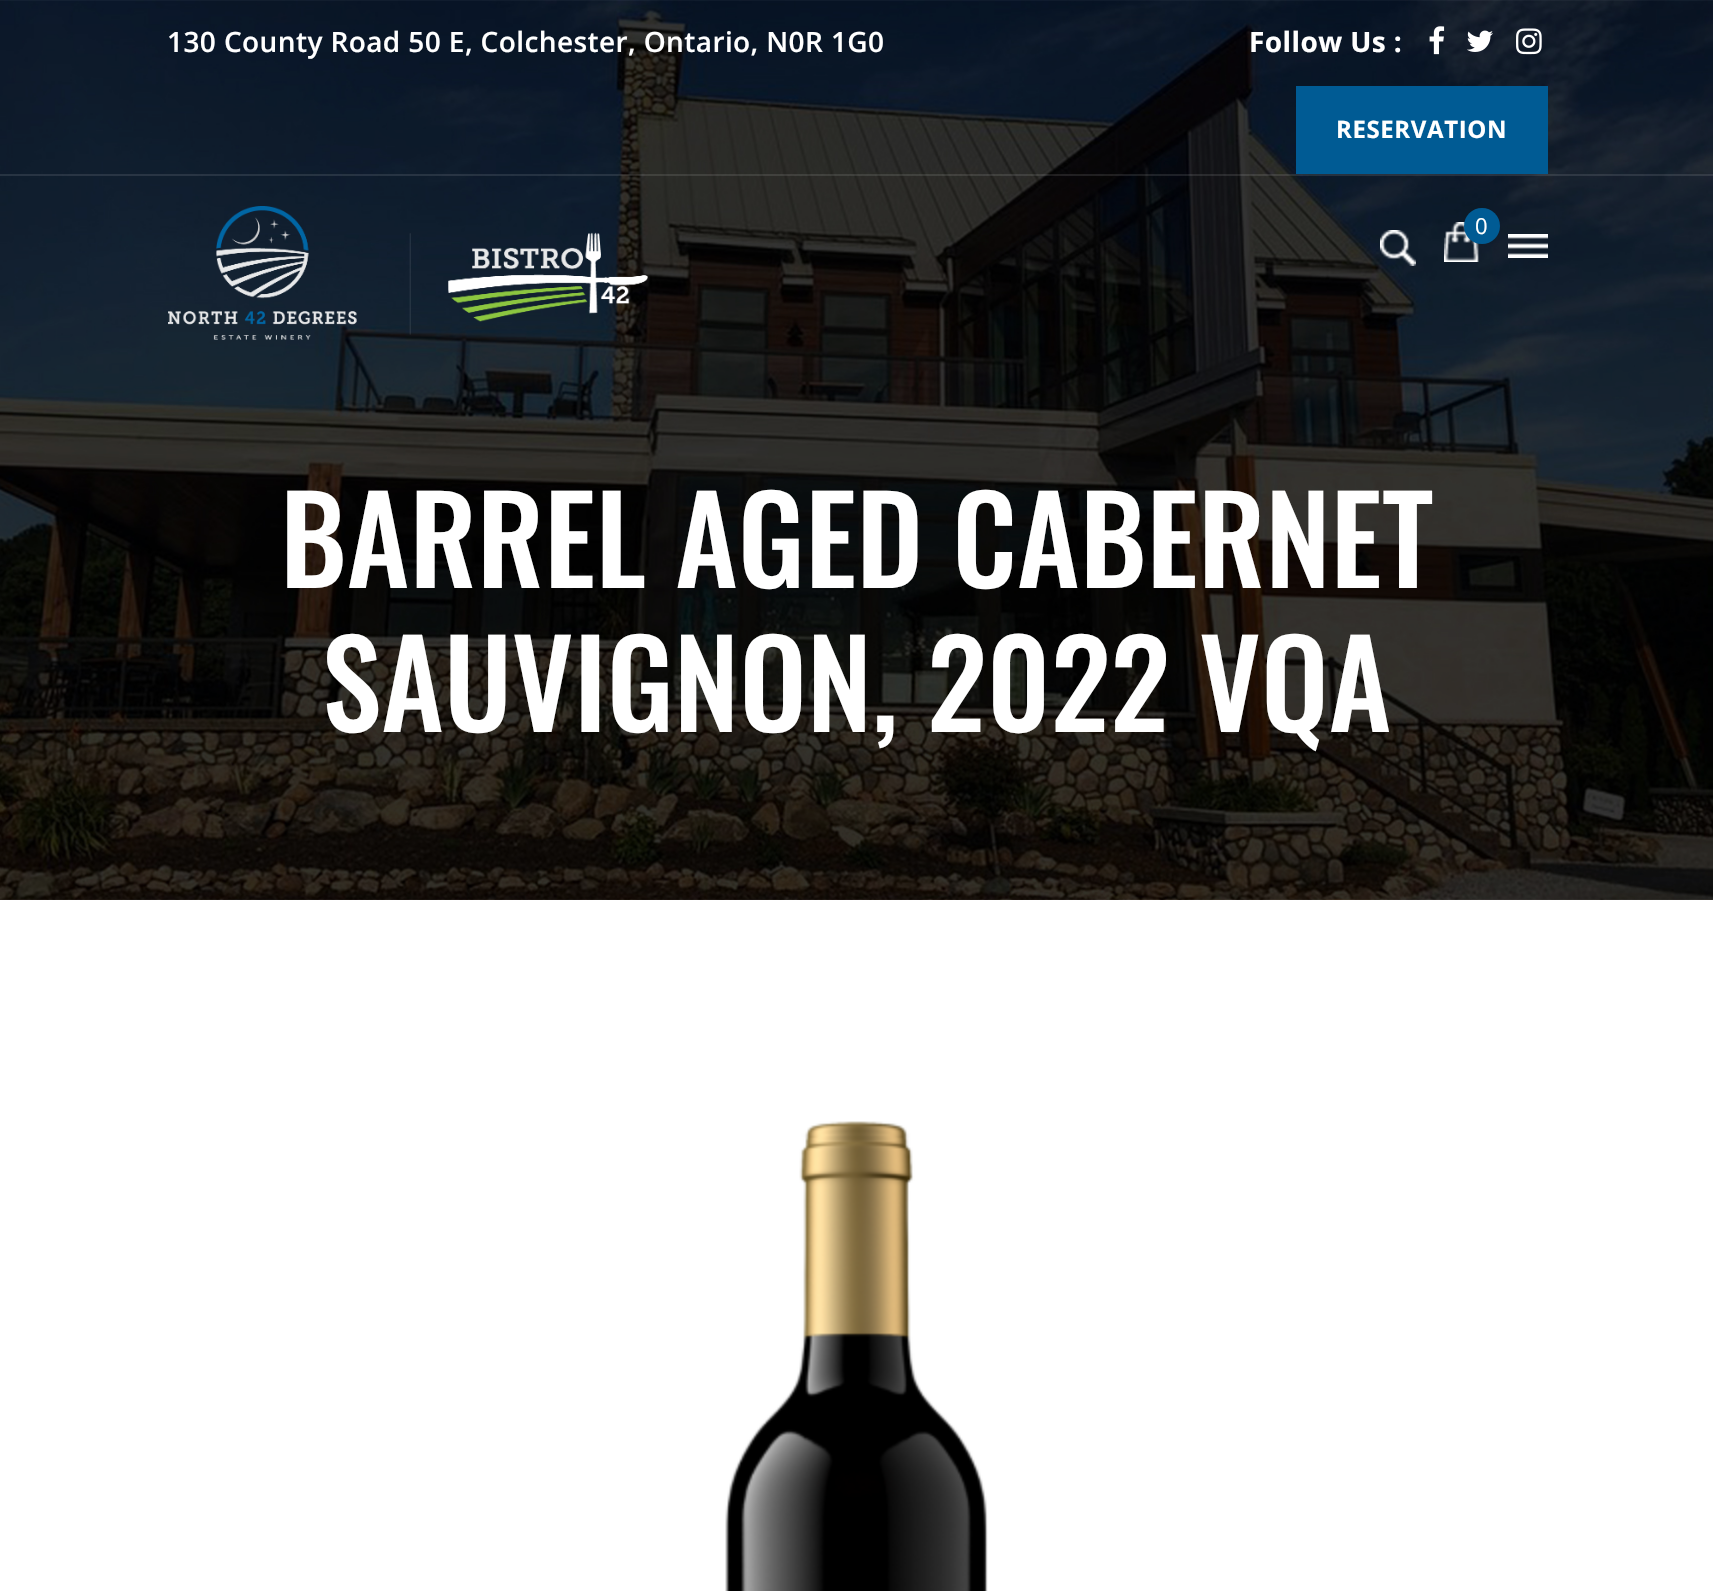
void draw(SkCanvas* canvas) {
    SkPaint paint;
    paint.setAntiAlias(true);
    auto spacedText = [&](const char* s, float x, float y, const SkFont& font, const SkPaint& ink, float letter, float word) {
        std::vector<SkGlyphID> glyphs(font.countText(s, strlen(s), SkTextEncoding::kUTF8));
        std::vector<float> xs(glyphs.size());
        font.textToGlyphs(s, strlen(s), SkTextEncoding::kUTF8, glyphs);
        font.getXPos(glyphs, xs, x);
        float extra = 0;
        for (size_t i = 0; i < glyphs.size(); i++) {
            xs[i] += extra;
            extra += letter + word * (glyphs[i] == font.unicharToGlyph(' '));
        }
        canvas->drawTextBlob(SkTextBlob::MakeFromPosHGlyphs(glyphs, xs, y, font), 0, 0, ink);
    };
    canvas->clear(0xFFFFFFFF);
    canvas->drawImageRect(SkImages::DeferredFromEncodedData(SkData::MakeFromFileName("img8.png")), SkRect::MakeXYWH(0, 0, 1713, 900), SkSamplingOptions());
    paint.setColor(0x1AFFFFFF);
    canvas->drawRect(SkRect::MakeXYWH(0, 174, 1713, 2), paint);
    SkFont font1(fontMgr->matchFamilyStyle("Open Sans", SkFontStyle(600, SkFontStyle::kNormal_Width, SkFontStyle::kUpright_Slant)), 28);
    font1.setSubpixel(true);
    paint.setColor(0xFFFFFFFF);
    spacedText("130 County Road 50 E, Colchester, Ontario, N0R 1G0", 167, 52, font1, paint, 0.4f, 0);
    SkFont font2(fontMgr->matchFamilyStyle("Open Sans", SkFontStyle::Bold()), 28);
    font2.setSubpixel(true);
    spacedText("Follow Us :", 1249, 52, font2, paint, 0.4f, 0);
    canvas->drawImageRect(SkImages::DeferredFromEncodedData(SkData::MakeFromFileName("img1.png")), SkRect::MakeXYWH(1429, 26, 16, 29), SkSamplingOptions());
    canvas->drawImageRect(SkImages::DeferredFromEncodedData(SkData::MakeFromFileName("img2.png")), SkRect::MakeXYWH(1467, 30, 26, 22), SkSamplingOptions());
    canvas->drawImageRect(SkImages::DeferredFromEncodedData(SkData::MakeFromFileName("img3.png")), SkRect::MakeXYWH(1516, 28, 26, 27), SkSamplingOptions());
    paint.setColor(0xFF005B94);
    canvas->drawRect(SkRect::MakeXYWH(1296, 86, 252, 88), paint);
    SkFont font3(fontMgr->matchFamilyStyle("Open Sans", SkFontStyle::Bold()), 24);
    font3.setSubpixel(true);
    paint.setColor(0xFFFFFFFF);
    spacedText("RESERVATION", 1336, 138, font3, paint, 0.6f, 0);
    canvas->drawImageRect(SkImages::DeferredFromEncodedData(SkData::MakeFromFileName("img4.png")), SkRect::MakeXYWH(168, 206, 480, 134), SkSamplingOptions());
    canvas->drawImageRect(SkImages::DeferredFromEncodedData(SkData::MakeFromFileName("img5.png")), SkRect::MakeXYWH(1444, 222, 35, 40), SkSamplingOptions());
    paint.setColor(0xFF005B94);
    canvas->drawCircle(1482, 226, 18, paint);
    SkFont font4(fontMgr->matchFamilyStyle("Open Sans", SkFontStyle::Normal()), 22);
    font4.setSubpixel(true);
    paint.setColor(0xFFFFFFFF);
    canvas->drawString("0", 1475, 234, font4, paint);
    canvas->drawImageRect(SkImages::DeferredFromEncodedData(SkData::MakeFromFileName("img6.png")), SkRect::MakeXYWH(1380, 230, 36, 36), SkSamplingOptions());
    canvas->drawImageRect(SkImages::DeferredFromEncodedData(SkData::MakeFromFileName("img7.png")), SkRect::MakeXYWH(1508, 234, 40, 24), SkSamplingOptions());
    SkFont font5(fontMgr->matchFamilyStyle("Oswald", SkFontStyle(500, SkFontStyle::kNormal_Width, SkFontStyle::kUpright_Slant)), 120);
    font5.setSubpixel(true);
    canvas->drawString("BARREL AGED CABERNET", 280, 588, font5, paint);
    canvas->drawString("SAUVIGNON, 2022 VQA", 322, 732, font5, paint);
    canvas->drawImageRect(SkImages::DeferredFromEncodedData(SkData::MakeFromFileName("img9.png")), SkRect::MakeXYWH(725, 1121, 263, 470), SkSamplingOptions());
}
